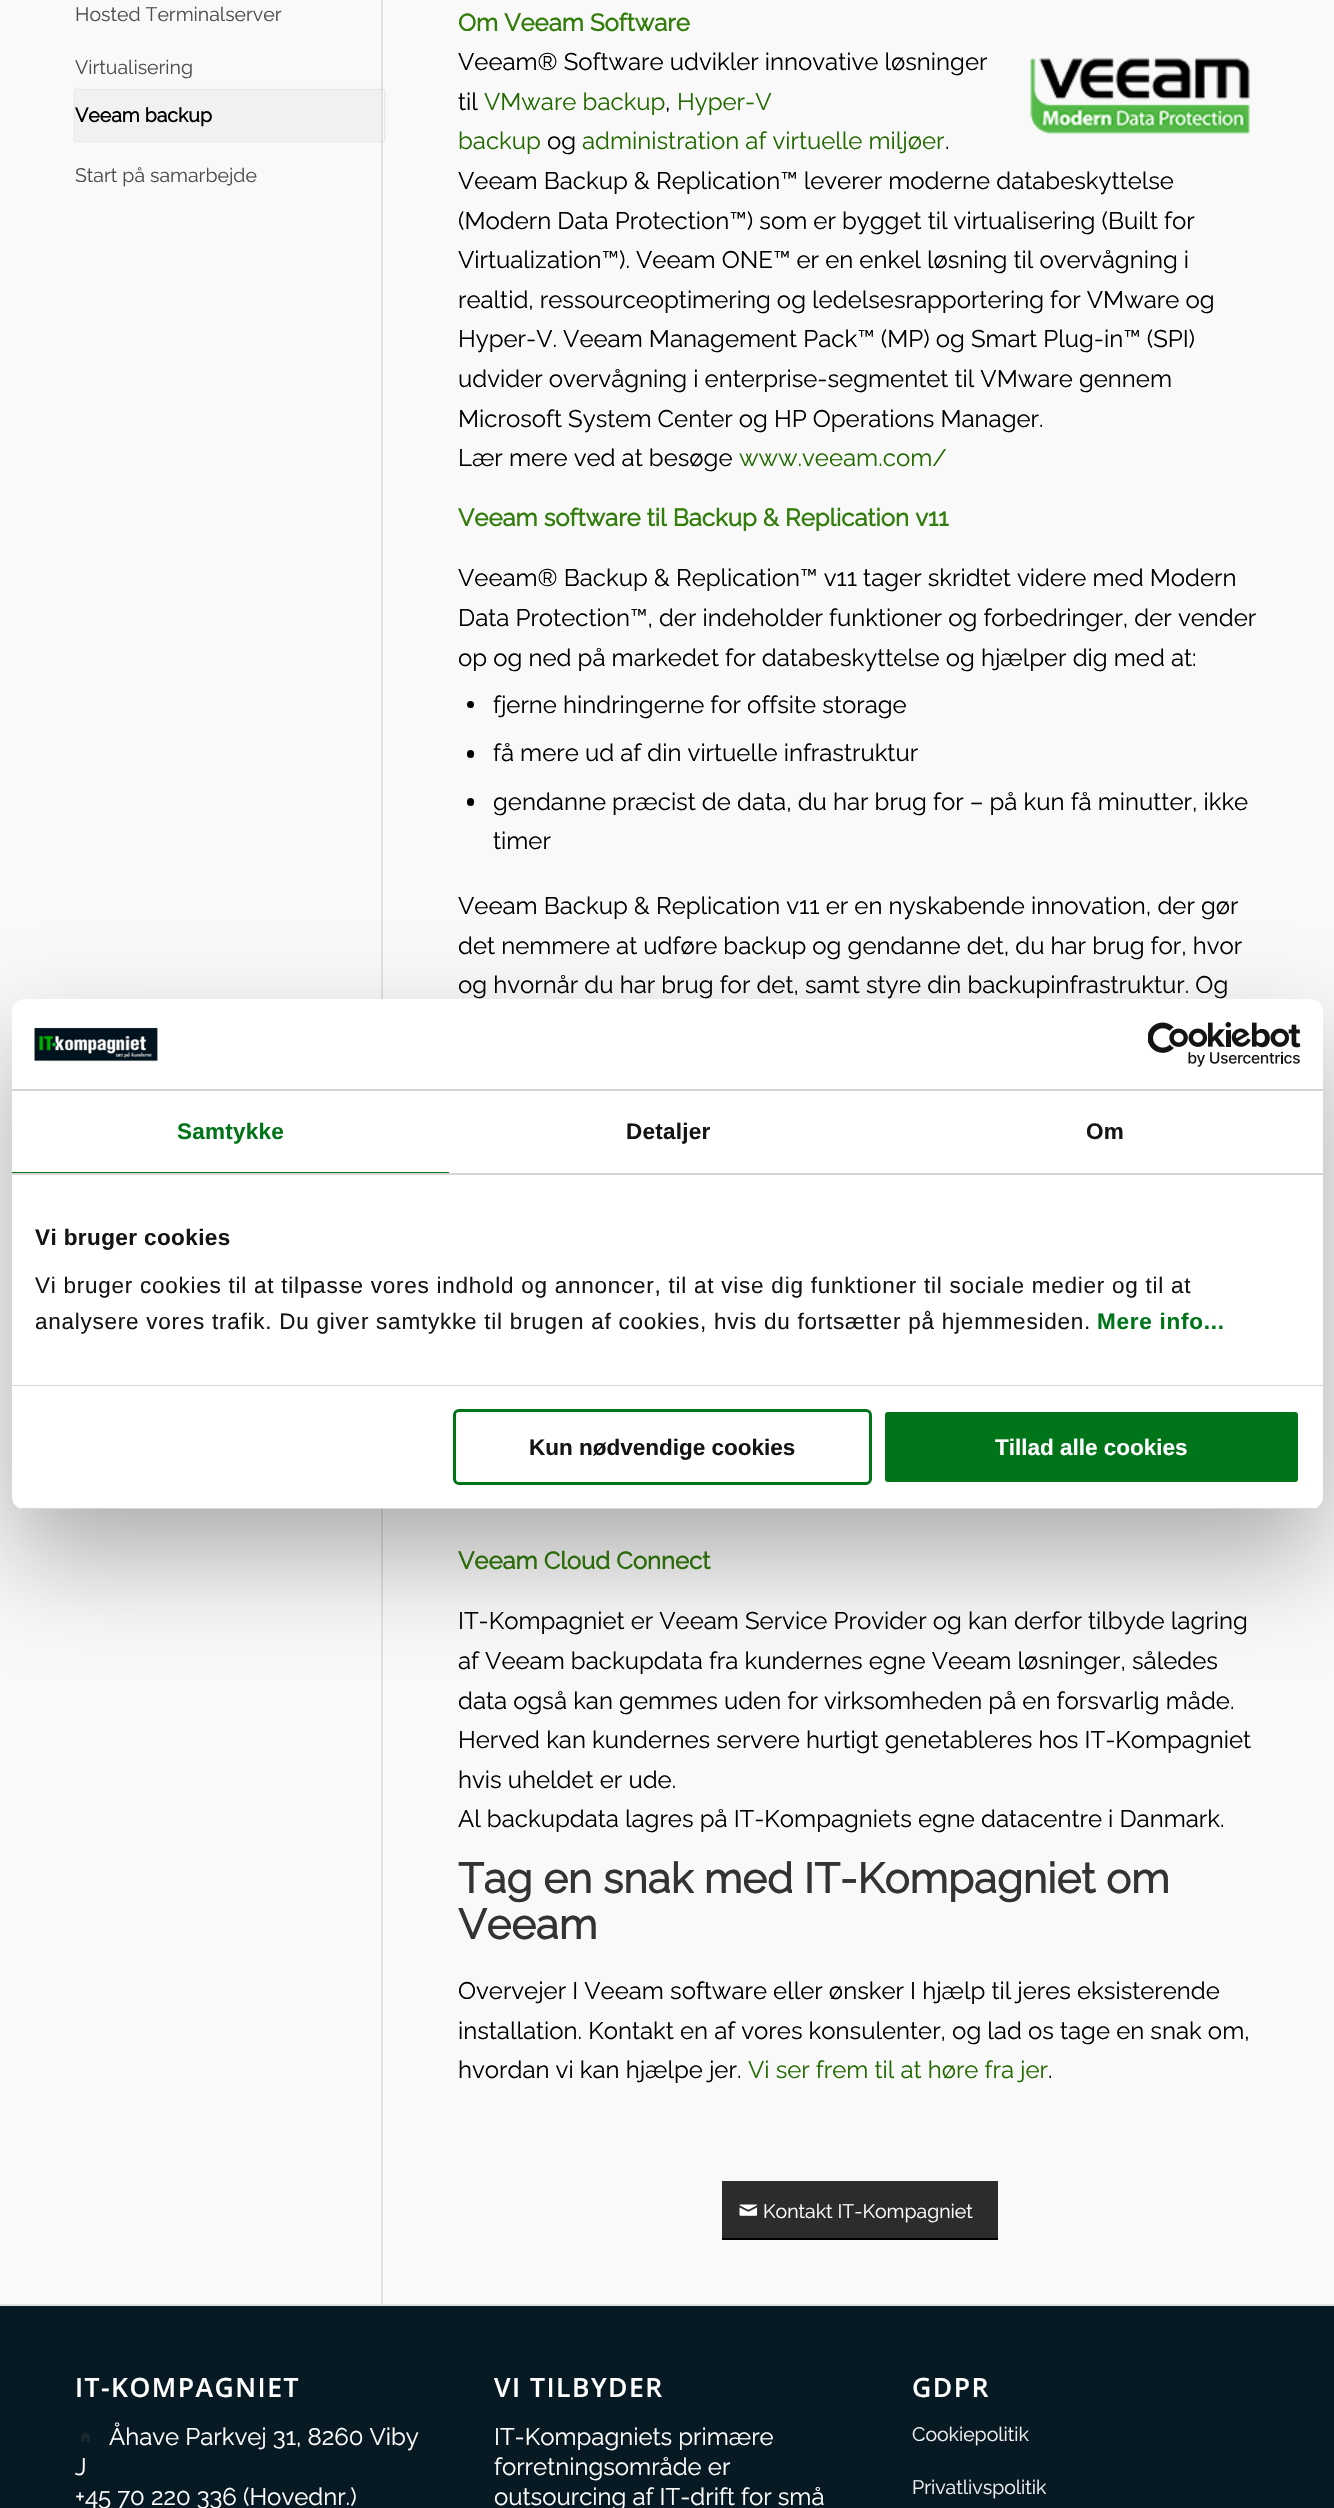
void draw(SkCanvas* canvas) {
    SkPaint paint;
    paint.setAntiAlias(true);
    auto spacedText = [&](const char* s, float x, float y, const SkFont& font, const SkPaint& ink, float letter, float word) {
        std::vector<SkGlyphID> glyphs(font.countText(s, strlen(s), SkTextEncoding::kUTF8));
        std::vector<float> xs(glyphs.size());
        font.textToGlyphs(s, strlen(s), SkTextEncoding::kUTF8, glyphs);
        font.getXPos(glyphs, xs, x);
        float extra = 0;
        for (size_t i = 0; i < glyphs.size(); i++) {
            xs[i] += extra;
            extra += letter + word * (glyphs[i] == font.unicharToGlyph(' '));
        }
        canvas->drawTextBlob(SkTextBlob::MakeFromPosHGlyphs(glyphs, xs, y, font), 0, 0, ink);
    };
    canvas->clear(0xFF071A23);
    paint.setColor(0xFFF9F9F9);
    canvas->drawRect(SkRect::MakeXYWH(0, 0, 1334, 2304), paint);
    SkFont font1(fontMgr->matchFamilyStyle("Raleway", SkFontStyle(100, SkFontStyle::kNormal_Width, SkFontStyle::kUpright_Slant)), 19.5f);
    font1.setSubpixel(true);
    paint.setColor(0xFF4D4D4D);
    canvas->drawString("Hosted Terminalserver", 75, 21, font1, paint);
    canvas->drawString("Virtualisering", 75, 74, font1, paint);
    paint.setColor(0xFFE1E1E1);
    canvas->drawRect(SkRect::MakeXYWH(381, 0, 2, 2304), paint);
    canvas->save();
    canvas->clipPath(SkPathBuilder(SkPathFillType::kEvenOdd).moveTo(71, 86).lineTo(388, 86).lineTo(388, 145).lineTo(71, 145).close().moveTo(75, 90).lineTo(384, 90).lineTo(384, 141).lineTo(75, 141).close().detach(), true);
    paint.setColor(0x33000000);
    paint.setMaskFilter(SkMaskFilter::MakeBlur(kNormal_SkBlurStyle, 1));
    canvas->drawRect(SkRect::MakeXYWH(75, 90, 309, 51), paint);
    paint.setMaskFilter(nullptr);
    canvas->restore();
    paint.setColor(0xFFF1F1F1);
    canvas->drawRect(SkRect::MakeXYWH(75, 90, 306, 51), paint);
    SkFont font2(fontMgr->matchFamilyStyle("Raleway", SkFontStyle::Bold()), 19.5f);
    font2.setSubpixel(true);
    paint.setColor(0xFF000000);
    canvas->drawString("Veeam backup", 75, 122, font2, paint);
    paint.setColor(0xFF4D4D4D);
    canvas->drawString("Start på samarbejde", 75, 182, font1, paint);
    SkFont font3(fontMgr->matchFamilyStyle("Raleway", SkFontStyle::Bold()), 24);
    font3.setSubpixel(true);
    paint.setColor(0xFF337D0C);
    canvas->drawString("Om Veeam Software", 458, 31, font3, paint);
    SkFont font4(fontMgr->matchFamilyStyle("Raleway", SkFontStyle(100, SkFontStyle::kNormal_Width, SkFontStyle::kUpright_Slant)), 24);
    font4.setSubpixel(true);
    paint.setColor(0xFF000000);
    canvas->drawString("Veeam® Software udvikler innovative løsninger", 458, 70, font4, paint);
    canvas->drawImageRect(SkImages::DeferredFromEncodedData(SkData::MakeFromFileName("img1.png")), SkRect::MakeXYWH(1030, 58, 220, 76), SkSamplingOptions());
    canvas->drawString("til", 458, 110, font4, paint);
    paint.setColor(0xFF236900);
    canvas->drawString("VMware backup", 484, 110, font4, paint);
    paint.setColor(0xFF000000);
    canvas->drawString(",", 665, 110, font4, paint);
    paint.setColor(0xFF236900);
    canvas->drawString("Hyper-V", 677, 110, font4, paint);
    canvas->drawString("backup", 458, 149, font4, paint);
    paint.setColor(0xFF000000);
    canvas->drawString("og", 547, 149, font4, paint);
    paint.setColor(0xFF236900);
    canvas->drawString("administration af virtuelle miljøer", 582, 149, font4, paint);
    paint.setColor(0xFF000000);
    canvas->drawString(".", 945, 149, font4, paint);
    canvas->drawString("Veeam Backup & Replication™ leverer moderne databeskyttelse", 458, 189, font4, paint);
    canvas->drawString("(Modern Data Protection™) som er bygget til virtualisering (Built for", 458, 229, font4, paint);
    canvas->drawString("Virtualization™). Veeam ONE™ er en enkel løsning til overvågning i", 458, 268, font4, paint);
    canvas->drawString("realtid, ressourceoptimering og ledelsesrapportering for VMware og", 458, 308, font4, paint);
    canvas->drawString("Hyper-V. Veeam Management Pack™ (MP) og Smart Plug-in™ (SPI)", 458, 347, font4, paint);
    canvas->drawString("udvider overvågning i enterprise-segmentet til VMware gennem", 458, 387, font4, paint);
    canvas->drawString("Microsoft System Center og HP Operations Manager.", 458, 427, font4, paint);
    canvas->drawString("Lær mere ved at besøge", 458, 466, font4, paint);
    paint.setColor(0xFF236900);
    canvas->drawString("www.veeam.com/", 739, 466, font4, paint);
    paint.setColor(0xFF337D0C);
    canvas->drawString("Veeam software til Backup & Replication v11", 458, 526, font3, paint);
    paint.setColor(0xFF000000);
    canvas->drawString("Veeam® Backup & Replication™ v11 tager skridtet videre med Modern", 458, 586, font4, paint);
    canvas->drawString("Data Protection™, der indeholder funktioner og forbedringer, der vender", 458, 626, font4, paint);
    canvas->drawString("op og ned på markedet for databeskyttelse og hjælper dig med at:", 458, 666, font4, paint);
    canvas->drawCircle(470.5f, 704.5f, 3.5f, paint);
    canvas->drawString("fjerne hindringerne for offsite storage", 493, 713, font4, paint);
    canvas->drawRoundRect(SkRect::MakeXYWH(467, 750, 7, 8), 3.5f, 3.5f, paint);
    canvas->drawString("få mere ud af din virtuelle infrastruktur", 493, 761, font4, paint);
    canvas->drawRoundRect(SkRect::MakeXYWH(467, 798, 7, 8), 3.5f, 3.5f, paint);
    canvas->drawString("gendanne præcist de data, du har brug for – på kun få minutter, ikke", 493, 810, font4, paint);
    canvas->drawString("timer", 493, 849, font4, paint);
    canvas->drawString("Veeam Backup & Replication v11 er en nyskabende innovation, der gør", 458, 914, font4, paint);
    canvas->drawString("det nemmere at udføre backup og gendanne det, du har brug for, hvor", 458, 954, font4, paint);
    canvas->drawString("og hvornår du har brug for det, samt styre din backupinfrastruktur. Og", 458, 993, font4, paint);
    paint.setColor(0xFF337D0C);
    canvas->drawString("Veeam Cloud Connect", 458, 1569, font3, paint);
    paint.setColor(0xFF000000);
    canvas->drawString("IT-Kompagniet er Veeam Service Provider og kan derfor tilbyde lagring", 458, 1629, font4, paint);
    canvas->drawString("af Veeam backupdata fra kundernes egne Veeam løsninger, således", 458, 1669, font4, paint);
    canvas->drawString("data også kan gemmes uden for virksomheden på en forsvarlig måde.", 458, 1709, font4, paint);
    canvas->drawString("Herved kan kundernes servere hurtigt genetableres hos IT-Kompagniet", 458, 1748, font4, paint);
    canvas->drawString("hvis uheldet er ude.", 458, 1788, font4, paint);
    canvas->drawString("Al backupdata lagres på IT-Kompagniets egne datacentre i Danmark.", 458, 1827, font4, paint);
    SkFont font5(fontMgr->matchFamilyStyle("Raleway", SkFontStyle::Bold()), 42);
    font5.setSubpixel(true);
    paint.setColor(0xFF333333);
    canvas->drawString("Tag en snak med IT-Kompagniet om", 458, 1893, font5, paint);
    canvas->drawString("Veeam", 458, 1939, font5, paint);
    paint.setColor(0xFF000000);
    canvas->drawString("Overvejer I Veeam software eller ønsker I hjælp til jeres eksisterende", 458, 1999, font4, paint);
    canvas->drawString("installation. Kontakt en af vores konsulenter, og lad os tage en snak om,", 458, 2039, font4, paint);
    canvas->drawString("hvordan vi kan hjælpe jer.", 458, 2078, font4, paint);
    paint.setColor(0xFF236900);
    canvas->drawString("Vi ser frem til at høre fra jer", 748, 2078, font4, paint);
    paint.setColor(0xFF000000);
    canvas->drawString(".", 1048, 2078, font4, paint);
    paint.setColor(0xFF2C2C2C);
    canvas->drawRect(SkRect::MakeXYWH(722, 2181, 276, 57), paint);
    paint.setColor(0xFF000000);
    canvas->drawRect(SkRect::MakeXYWH(722, 2238, 276, 2), paint);
    canvas->drawImageRect(SkImages::DeferredFromEncodedData(SkData::MakeFromFileName("img2.png")), SkRect::MakeXYWH(739, 2204, 19, 12), SkSamplingOptions());
    paint.setColor(0xFFFFFFFF);
    canvas->drawString("Kontakt IT-Kompagniet", 763, 2218, font1, paint);
    paint.setColor(0xFFE1E1E1);
    canvas->drawRect(SkRect::MakeXYWH(0, 2304, 1334, 2), paint);
    SkFont font6(fontMgr->matchFamilyStyle("Open Sans", SkFontStyle(600, SkFontStyle::kNormal_Width, SkFontStyle::kUpright_Slant)), 26.5f);
    font6.setSubpixel(true);
    paint.setColor(0xFFFFFFFF);
    spacedText("IT-KOMPAGNIET", 75, 2397, font6, paint, 1.5f, 0);
    canvas->drawImageRect(SkImages::DeferredFromEncodedData(SkData::MakeFromFileName("img3.png")), SkRect::MakeXYWH(80, 2432, 11, 10), SkSamplingOptions());
    canvas->drawString("Åhave Parkvej 31, 8260 Viby", 109, 2445, font4, paint);
    canvas->drawString("J", 75, 2475, font4, paint);
    canvas->drawString("+45 70 220 336 (Hovednr.)", 75, 2505, font4, paint);
    spacedText("VI TILBYDER", 494, 2397, font6, paint, 1.5f, 0);
    canvas->drawString("IT-Kompagniets primære", 494, 2445, font4, paint);
    canvas->drawString("forretningsområde er", 494, 2475, font4, paint);
    canvas->drawString("outsourcing af IT-drift for små", 494, 2505, font4, paint);
    spacedText("GDPR", 912, 2397, font6, paint, 1.5f, 0);
    paint.setColor(0xFFF1F1F1);
    canvas->drawString("Cookiepolitik", 912, 2441, font1, paint);
    canvas->drawString("Privatlivspolitik", 912, 2494, font1, paint);
    paint.setColor(0x4D000000);
    paint.setMaskFilter(SkMaskFilter::MakeBlur(kNormal_SkBlurStyle, 51));
    canvas->drawRoundRect(SkRect::MakeXYWH(12, 1047, 1311, 510), 12, 12, paint);
    paint.setMaskFilter(nullptr);
    paint.setColor(0xFFFFFFFF);
    canvas->drawRoundRect(SkRect::MakeXYWH(12, 999, 1311, 510), 12, 12, paint);
    paint.setColor(0xFFD6D6D6);
    canvas->drawRect(SkRect::MakeXYWH(12, 1089, 1311, 2), paint);
    canvas->drawImageRect(SkImages::DeferredFromEncodedData(SkData::MakeFromFileName("img4.png")), SkRect::MakeXYWH(34, 1027, 124, 35), SkSamplingOptions());
    canvas->drawImageRect(SkImages::DeferredFromEncodedData(SkData::MakeFromFileName("img5.png")), SkRect::MakeXYWH(1148, 1022, 153, 45), SkSamplingOptions());
    canvas->drawRect(SkRect::MakeXYWH(12, 1173, 1311, 2), paint);
    paint.setColor(0xFF007419);
    canvas->drawRect(SkRect::MakeXYWH(12, 1172, 437, 1), paint);
    SkFont font7(fontMgr->matchFamilyStyle("Liberation Sans", SkFontStyle::Bold()), 22.5f);
    font7.setSubpixel(true);
    spacedText("Samtykke", 177, 1139, font7, paint, 0.25f, 0);
    paint.setColor(0xFF141414);
    spacedText("Detaljer", 626, 1139, font7, paint, 0.25f, 0);
    spacedText("Om", 1086, 1139, font7, paint, 0.25f, 0);
    paint.setColor(0xFFD6D6D6);
    canvas->drawRect(SkRect::MakeXYWH(12, 1385, 1311, 1), paint);
    paint.setColor(0xFF141414);
    spacedText("Vi bruger cookies", 35, 1245, font7, paint, 0.4f, 0);
    SkFont font8(fontMgr->matchFamilyStyle("Liberation Sans", SkFontStyle::Normal()), 22.5f);
    font8.setSubpixel(true);
    spacedText("Vi bruger cookies til at tilpasse vores indhold og annoncer, til at vise dig funktioner til sociale medier og til at", 35, 1293, font8, paint, 0.75f, 0);
    spacedText("analysere vores trafik. Du giver samtykke til brugen af cookies, hvis du fortsætter på hjemmesiden.", 35, 1329, font8, paint, 0.75f, 0);
    paint.setColor(0xFF007419);
    spacedText("Mere info...", 1097, 1329, font7, paint, 0.75f, 0);
    canvas->save();
    canvas->clipPath(SkPathBuilder().moveTo(24, 999).lineTo(1311, 999).cubicTo(1317.5f, 999, 1323, 1004.5f, 1323, 1011).lineTo(1323, 1497).cubicTo(1323, 1503.5f, 1317.5f, 1509, 1311, 1509).lineTo(24, 1509).cubicTo(17.5f, 1509, 12, 1503.5f, 12, 1497).lineTo(12, 1011).cubicTo(12, 1004.5f, 17.5f, 999, 24, 999).close().detach(), true);
    paint.setColor(0xFFD6D6D6);
    canvas->drawRect(SkRect::MakeXYWH(12, 1508, 1311, 1), paint);
    canvas->restore();
    paint.setStyle(SkPaint::kStroke_Style);
    paint.setStrokeWidth(3);
    paint.setColor(0xFF007419);
    canvas->drawRoundRect(SkRect::MakeXYWH(454.5f, 1410.5f, 416, 73), 4.5f, 4.5f, paint);
    paint.setStyle(SkPaint::kFill_Style);
    paint.setColor(0xFF141414);
    canvas->drawString("Kun nødvendige cookies", 529, 1455, font7, paint);
    paint.setColor(0xFF007419);
    canvas->drawRoundRect(SkRect::MakeXYWH(883.5f, 1410.5f, 416, 73), 4.5f, 4.5f, paint);
    paint.setStyle(SkPaint::kStroke_Style);
    paint.setColor(0xFFFFFFFF);
    canvas->drawRoundRect(SkRect::MakeXYWH(883.5f, 1410.5f, 416, 73), 4.5f, 4.5f, paint);
    paint.setStyle(SkPaint::kFill_Style);
    canvas->drawString("Tillad alle cookies", 995, 1455, font7, paint);
}
